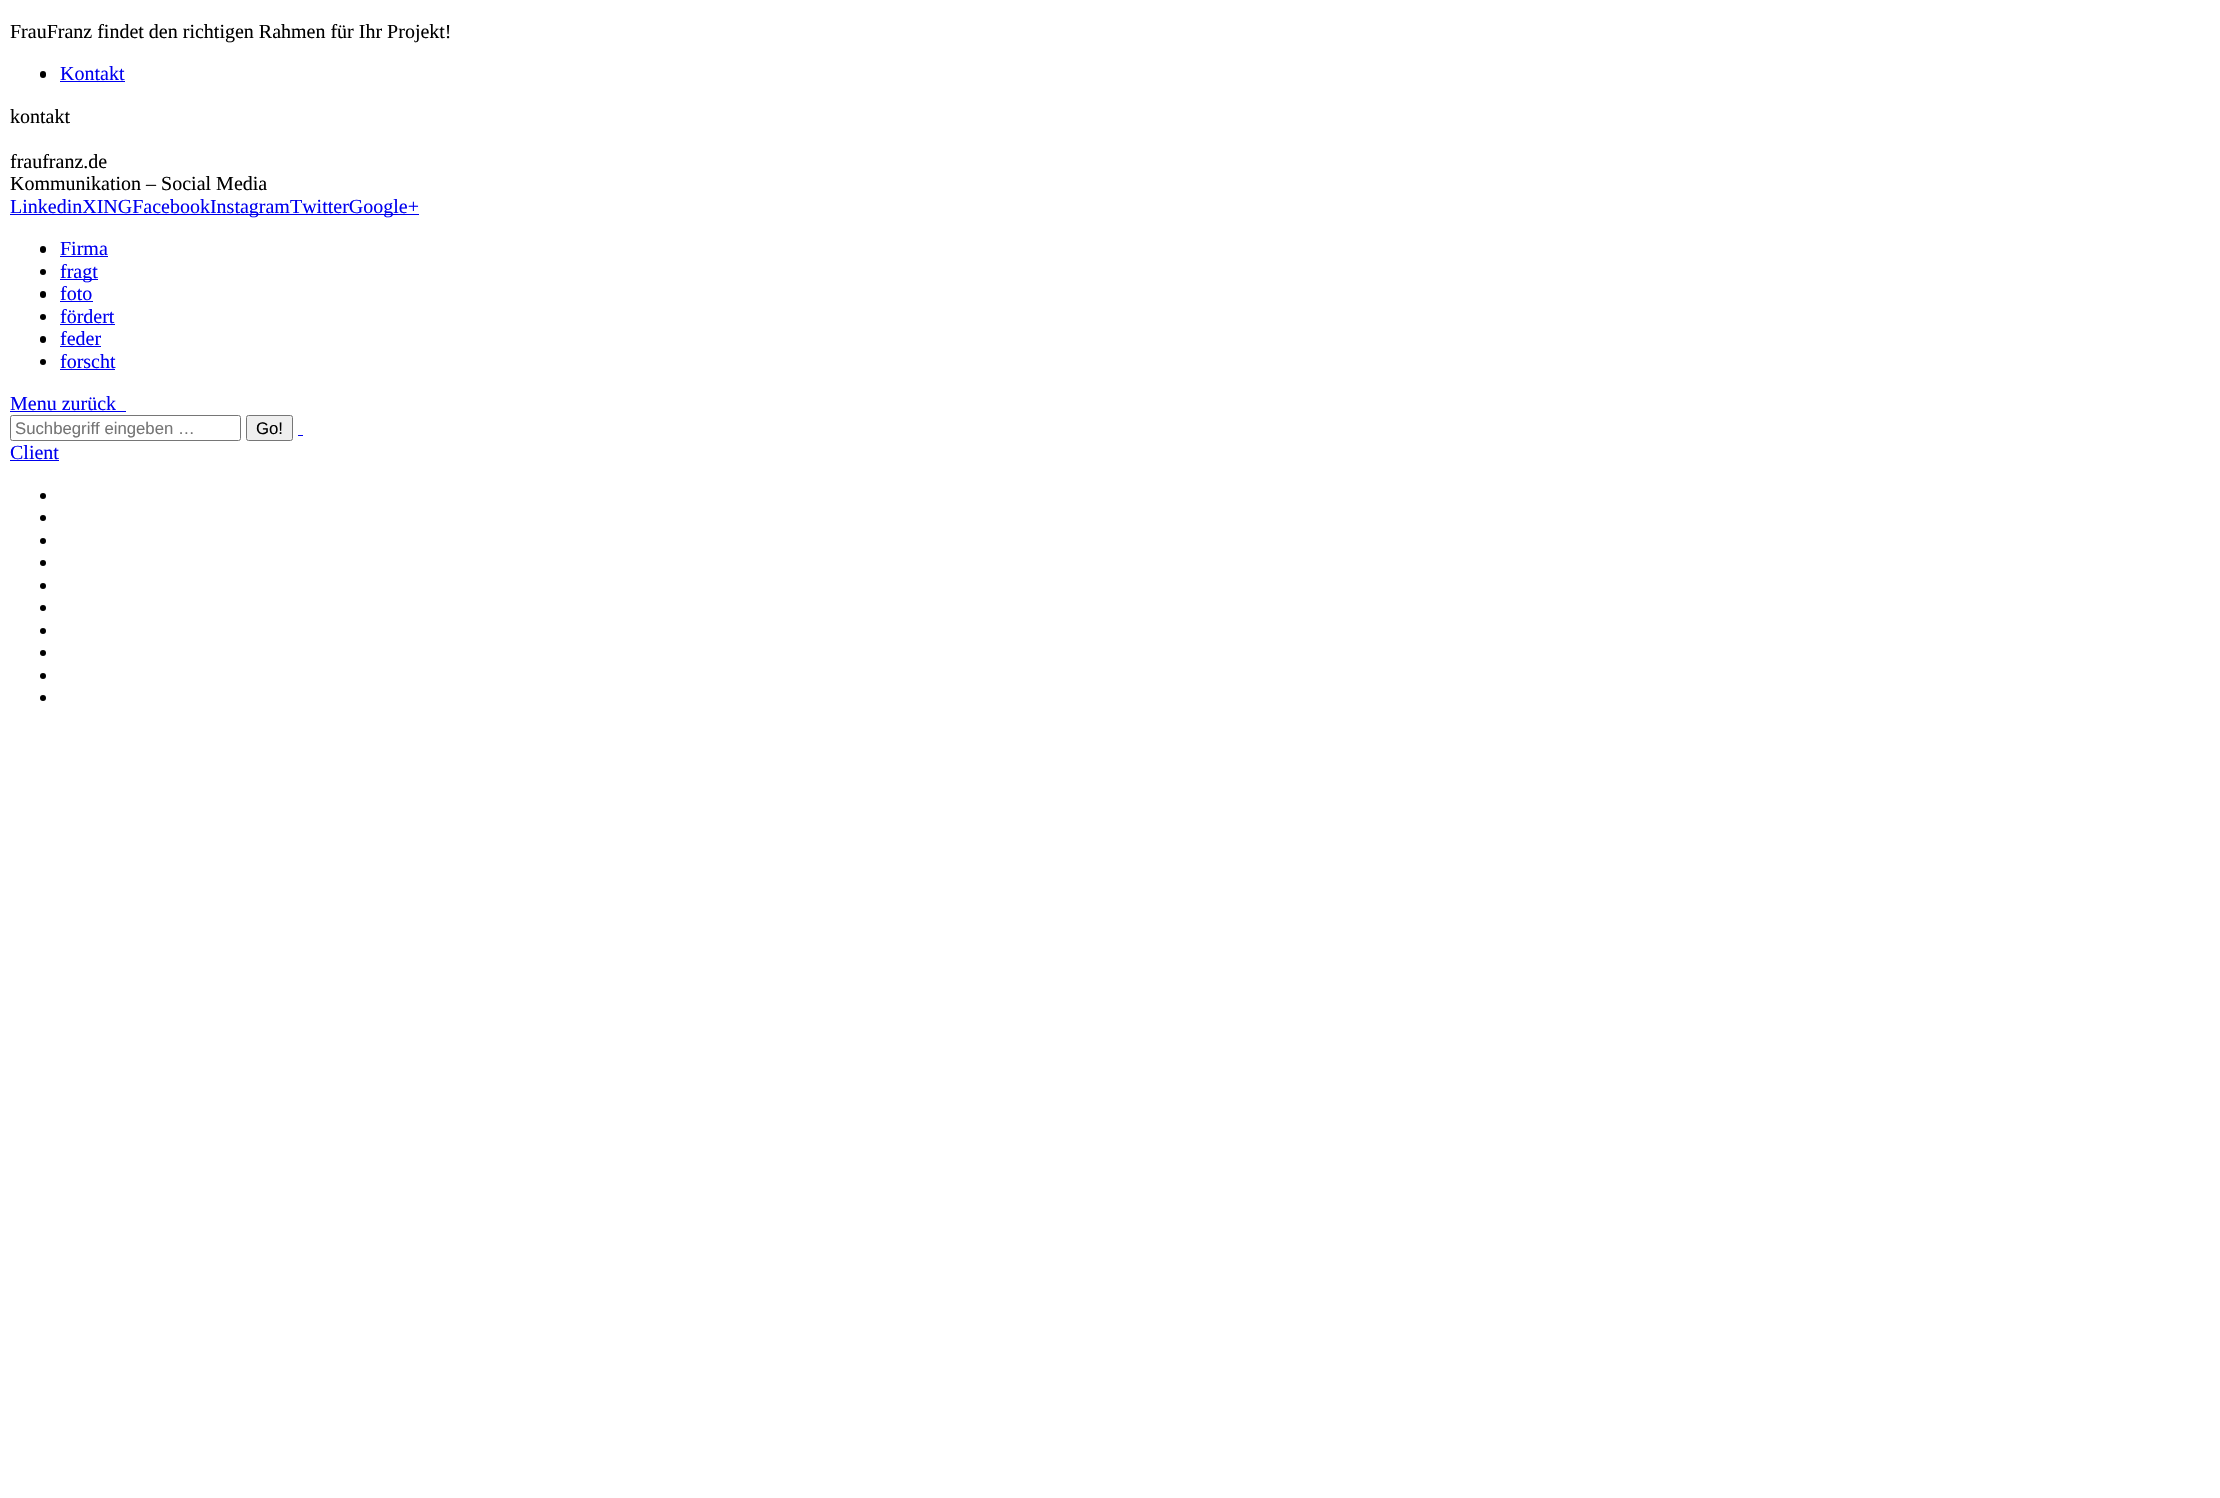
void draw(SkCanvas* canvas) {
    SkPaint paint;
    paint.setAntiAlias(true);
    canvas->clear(0xFFFFFFFF);
    SkFont font1(fontMgr->matchFamilyStyle("Liberation Serif", SkFontStyle::Normal()), 20);
    font1.setSubpixel(true);
    paint.setColor(0xFF000000);
    canvas->drawString("FrauFranz findet den richtigen Rahmen für Ihr Projekt!", 10, 38, font1, paint);
    canvas->drawRoundRect(SkRect::MakeXYWH(40, 71, 6, 7), 3, 3, paint);
    paint.setColor(0xFF0000EE);
    canvas->drawString("Kontakt", 60, 80, font1, paint);
    canvas->drawRect(SkRect::MakeXYWH(60, 81, 65, 1), paint);
    paint.setColor(0xFF000000);
    canvas->drawString("kontakt", 10, 123, font1, paint);
    canvas->drawString("fraufranz.de", 10, 168, font1, paint);
    canvas->drawString("Kommunikation – Social Media", 10, 190, font1, paint);
    paint.setColor(0xFF0000EE);
    canvas->drawRect(SkRect::MakeXYWH(10, 214, 409, 1), paint);
    canvas->drawString("LinkedinXINGFacebookInstagramTwitterGoogle+", 10, 213, font1, paint);
    paint.setColor(0xFF000000);
    canvas->drawRoundRect(SkRect::MakeXYWH(40, 246, 6, 7), 3, 3, paint);
    paint.setColor(0xFF0000EE);
    canvas->drawString("Firma", 60, 255, font1, paint);
    canvas->drawRect(SkRect::MakeXYWH(60, 256, 48, 1), paint);
    paint.setColor(0xFF000000);
    canvas->drawCircle(43, 272, 3, paint);
    paint.setColor(0xFF0000EE);
    canvas->drawRect(SkRect::MakeXYWH(60, 279, 38, 1), paint);
    canvas->drawString("fragt", 60, 278, font1, paint);
    paint.setColor(0xFF000000);
    canvas->drawRoundRect(SkRect::MakeXYWH(40, 291, 6, 7), 3, 3, paint);
    paint.setColor(0xFF0000EE);
    canvas->drawString("foto", 60, 300, font1, paint);
    canvas->drawRect(SkRect::MakeXYWH(60, 301, 33, 1), paint);
    paint.setColor(0xFF000000);
    canvas->drawCircle(43, 317, 3, paint);
    paint.setColor(0xFF0000EE);
    canvas->drawString("fördert", 60, 323, font1, paint);
    canvas->drawRect(SkRect::MakeXYWH(60, 324, 55, 1), paint);
    paint.setColor(0xFF000000);
    canvas->drawRoundRect(SkRect::MakeXYWH(40, 336, 6, 7), 3, 3, paint);
    paint.setColor(0xFF0000EE);
    canvas->drawString("feder", 60, 345, font1, paint);
    canvas->drawRect(SkRect::MakeXYWH(60, 346, 41, 1), paint);
    paint.setColor(0xFF000000);
    canvas->drawCircle(43, 362, 3, paint);
    paint.setColor(0xFF0000EE);
    canvas->drawString("forscht", 60, 368, font1, paint);
    canvas->drawRect(SkRect::MakeXYWH(60, 369, 55, 1), paint);
    canvas->drawString("Menu zurück", 10, 410, font1, paint);
    canvas->drawRect(SkRect::MakeXYWH(10, 411, 116, 1), paint);
    paint.setStyle(SkPaint::kStroke_Style);
    paint.setStrokeWidth(1);
    paint.setColor(0xFF767676);
    canvas->drawRoundRect(SkRect::MakeXYWH(10.5f, 415.5f, 230, 25), 2, 2, paint);
    SkFont font2(fontMgr->matchFamilyStyle("Liberation Sans", SkFontStyle::Normal()), 16.75f);
    font2.setSubpixel(true);
    paint.setStyle(SkPaint::kFill_Style);
    paint.setColor(0xFF757575);
    canvas->drawString("Suchbegriff eingeben …", 15, 434, font2, paint);
    paint.setColor(0xFFEFEFEF);
    canvas->drawRoundRect(SkRect::MakeXYWH(246.5f, 415.5f, 46, 25), 2, 2, paint);
    paint.setStyle(SkPaint::kStroke_Style);
    paint.setColor(0xFF767676);
    canvas->drawRoundRect(SkRect::MakeXYWH(246.5f, 415.5f, 46, 25), 2, 2, paint);
    paint.setStyle(SkPaint::kFill_Style);
    paint.setColor(0xFF000000);
    canvas->drawString("Go!", 256, 434, font2, paint);
    paint.setColor(0xFF0000EE);
    canvas->drawRect(SkRect::MakeXYWH(298, 435, 5, 1), paint);
    canvas->drawString("Client", 10, 459, font1, paint);
    canvas->drawRect(SkRect::MakeXYWH(10, 460, 49, 1), paint);
    paint.setColor(0xFF000000);
    canvas->drawCircle(43, 496, 3, paint);
    canvas->drawCircle(43, 518, 3, paint);
    canvas->drawCircle(43, 541, 3, paint);
    canvas->drawCircle(43, 563, 3, paint);
    canvas->drawCircle(43, 586, 3, paint);
    canvas->drawCircle(43, 608, 3, paint);
    canvas->drawCircle(43, 631, 3, paint);
    canvas->drawCircle(43, 653, 3, paint);
    canvas->drawCircle(43, 676, 3, paint);
    canvas->drawCircle(43, 698, 3, paint);
}
